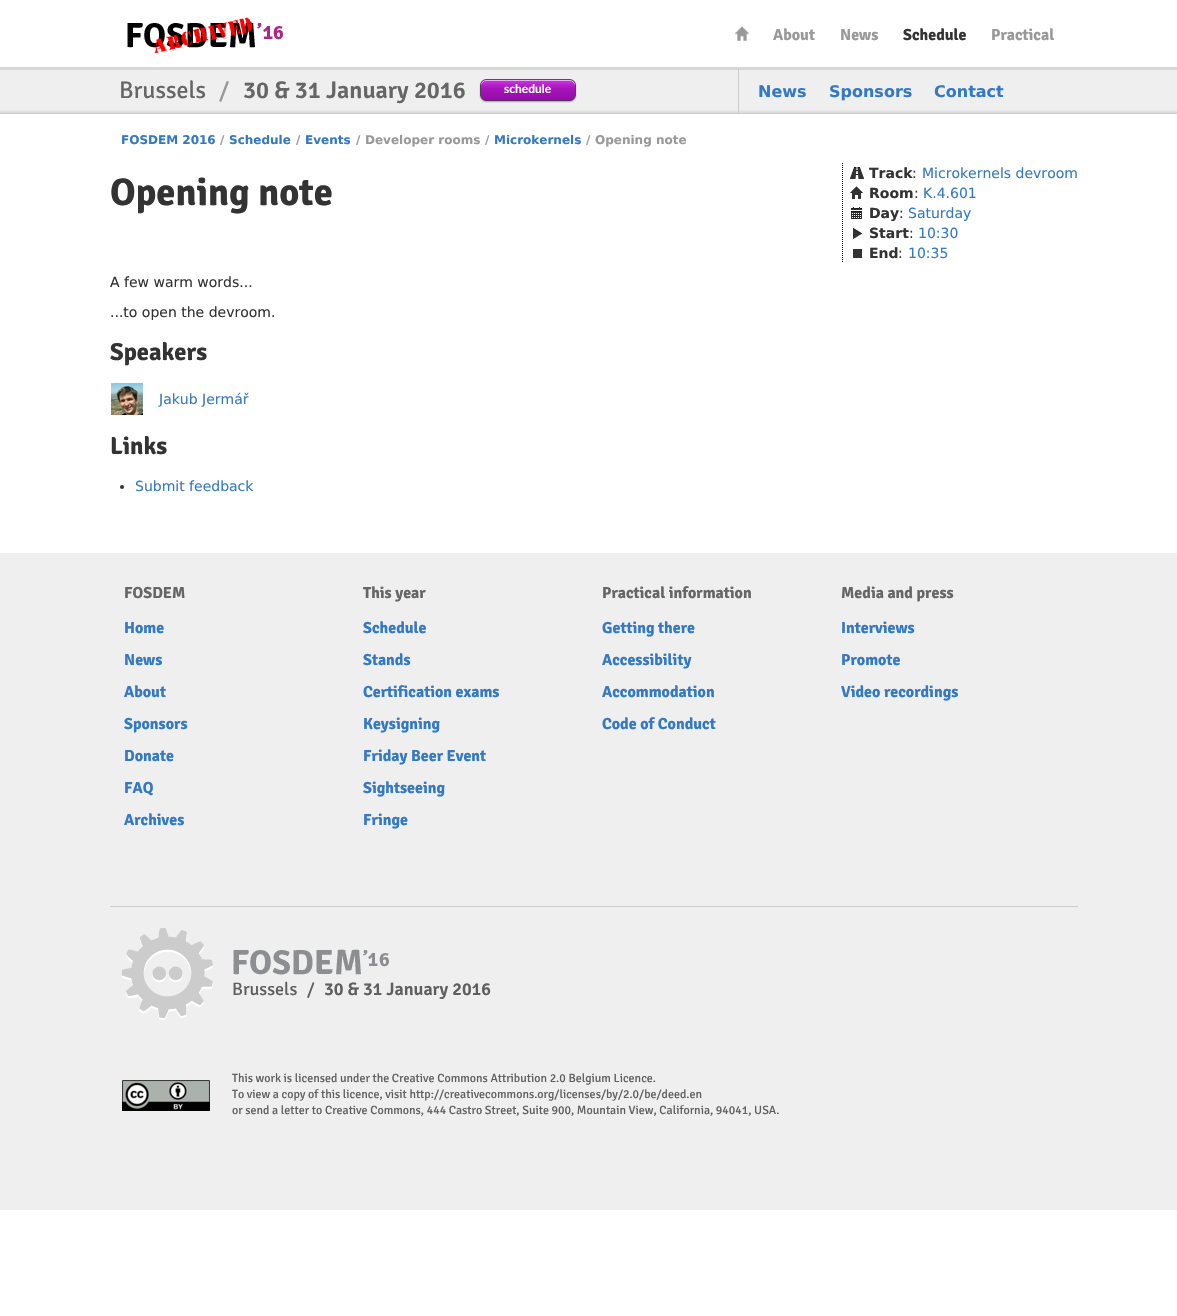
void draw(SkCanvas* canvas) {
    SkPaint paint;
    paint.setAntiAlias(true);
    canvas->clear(0xFFFFFFFF);
    canvas->drawImageRect(SkImages::DeferredFromEncodedData(SkData::MakeFromFileName("img1.png")), SkRect::MakeXYWH(127, 14, 156, 41), SkSamplingOptions());
    canvas->drawImageRect(SkImages::DeferredFromEncodedData(SkData::MakeFromFileName("img2.png")), SkRect::MakeXYWH(735, 26, 14, 15), SkSamplingOptions());
    SkFont font1(fontMgr->matchFamilyStyle("Signika", SkFontStyle::Bold()), 16);
    font1.setSubpixel(true);
    paint.setColor(0xFF999999);
    canvas->drawString("About", 773, 40, font1, paint);
    canvas->drawString("News", 840, 40, font1, paint);
    paint.setColor(0xFF333333);
    canvas->drawString("Schedule", 903, 40, font1, paint);
    paint.setColor(0xFF999999);
    canvas->drawString("Practical", 991, 40, font1, paint);
    paint.setColor(0xFFEFEFEF);
    canvas->drawRect(SkRect::MakeXYWH(0, 70, 1177, 40), paint);
    paint.setColor(0xFFD7D7D7);
    canvas->drawRect(SkRect::MakeXYWH(0, 67, 1177, 3), paint);
    canvas->drawImageRect(SkImages::DeferredFromEncodedData(SkData::MakeFromFileName("img3.png")), SkRect::MakeXYWH(0, 110, 1177, 4), SkSamplingOptions());
    SkFont font2(fontMgr->matchFamilyStyle("Signika", SkFontStyle::Normal()), 24);
    font2.setSubpixel(true);
    paint.setColor(0xFF666666);
    canvas->drawString("Brussels", 119, 98, font2, paint);
    paint.setColor(0xFF999999);
    canvas->drawString("/", 219, 98, font2, paint);
    SkFont font3(fontMgr->matchFamilyStyle("Signika", SkFontStyle(600, SkFontStyle::kNormal_Width, SkFontStyle::kUpright_Slant)), 24);
    font3.setSubpixel(true);
    paint.setColor(0xFF666666);
    canvas->drawString("30 & 31 January 2016", 243, 98, font3, paint);
    canvas->drawImageRect(SkImages::DeferredFromEncodedData(SkData::MakeFromFileName("img4.png")), SkRect::MakeXYWH(479, 79, 98, 24), SkSamplingOptions());
    SkFont font4(fontMgr->matchFamilyStyle("Lato", SkFontStyle::Bold()), 12);
    font4.setSubpixel(true);
    paint.setColor(0xFFFFFFFF);
    canvas->drawString("schedule", 504, 93, font4, paint);
    paint.setColor(0xFFCCCCCC);
    canvas->drawRect(SkRect::MakeXYWH(738, 69, 1, 45), paint);
    SkFont font5(fontMgr->matchFamilyStyle("DejaVu Sans", SkFontStyle::Bold()), 16);
    font5.setSubpixel(true);
    paint.setColor(0xFF3479C4);
    canvas->drawString("News", 758, 97, font5, paint);
    canvas->drawString("Sponsors", 829, 97, font5, paint);
    canvas->drawString("Contact", 934, 97, font5, paint);
    SkFont font6(fontMgr->matchFamilyStyle("DejaVu Sans", SkFontStyle::Bold()), 12);
    font6.setSubpixel(true);
    canvas->drawString("FOSDEM 2016", 121, 144, font6, paint);
    paint.setColor(0xFF9F9F9F);
    canvas->drawString("/", 220, 144, font6, paint);
    paint.setColor(0xFF3479C4);
    canvas->drawString("Schedule", 229, 144, font6, paint);
    paint.setColor(0xFF9F9F9F);
    canvas->drawString("/", 296, 144, font6, paint);
    paint.setColor(0xFF3479C4);
    canvas->drawString("Events", 305, 144, font6, paint);
    paint.setColor(0xFF9F9F9F);
    canvas->drawString("/", 356, 144, font6, paint);
    paint.setColor(0xFF999999);
    canvas->drawString("Developer rooms", 365, 144, font6, paint);
    paint.setColor(0xFF9F9F9F);
    canvas->drawString("/", 485, 144, font6, paint);
    paint.setColor(0xFF3479C4);
    canvas->drawString("Microkernels", 494, 144, font6, paint);
    paint.setColor(0xFF9F9F9F);
    canvas->drawString("/", 586, 144, font6, paint);
    paint.setColor(0xFF999999);
    canvas->drawString("Opening note", 595, 144, font6, paint);
    SkFont font7(fontMgr->matchFamilyStyle("Signika", SkFontStyle::Bold()), 38.5f);
    font7.setSubpixel(true);
    paint.setColor(0xFF333333);
    canvas->drawString("Opening note", 110, 205, font7, paint);
    paint.setStyle(SkPaint::kStroke_Style);
    paint.setStrokeWidth(1);
    paint.setColor(0xFF000000);
    paint.setPathEffect(SkDashPathEffect::Make({{1, 1}}, 0));
    canvas->drawPath(SkPathBuilder().moveTo(842.5f, 163).lineTo(842.5f, 263).detach(), paint);
    paint.setPathEffect(nullptr);
    canvas->drawImageRect(SkImages::DeferredFromEncodedData(SkData::MakeFromFileName("img5.png")), SkRect::MakeXYWH(850, 167, 14, 12), SkSamplingOptions());
    SkFont font8(fontMgr->matchFamilyStyle("DejaVu Sans", SkFontStyle::Bold()), 14);
    font8.setSubpixel(true);
    paint.setStyle(SkPaint::kFill_Style);
    paint.setColor(0xFF333333);
    canvas->drawString("Track", 869, 178, font8, paint);
    SkFont font9(fontMgr->matchFamilyStyle("DejaVu Sans", SkFontStyle::Normal()), 14);
    font9.setSubpixel(true);
    canvas->drawString(":", 912, 178, font9, paint);
    paint.setColor(0xFF3479C4);
    canvas->drawString("Microkernels devroom", 922, 178, font9, paint);
    canvas->drawImageRect(SkImages::DeferredFromEncodedData(SkData::MakeFromFileName("img6.png")), SkRect::MakeXYWH(850, 186, 13, 13), SkSamplingOptions());
    paint.setColor(0xFF333333);
    canvas->drawString("Room", 869, 198, font8, paint);
    canvas->drawString(":", 914, 198, font9, paint);
    paint.setColor(0xFF3479C4);
    canvas->drawString("K.4.601", 923, 198, font9, paint);
    canvas->drawImageRect(SkImages::DeferredFromEncodedData(SkData::MakeFromFileName("img7.png")), SkRect::MakeXYWH(851, 207, 11, 12), SkSamplingOptions());
    paint.setColor(0xFF333333);
    canvas->drawString("Day", 869, 218, font8, paint);
    canvas->drawString(":", 899, 218, font9, paint);
    paint.setColor(0xFF3479C4);
    canvas->drawString("Saturday", 908, 218, font9, paint);
    canvas->drawImageRect(SkImages::DeferredFromEncodedData(SkData::MakeFromFileName("img8.png")), SkRect::MakeXYWH(853, 228, 9, 11), SkSamplingOptions());
    paint.setColor(0xFF333333);
    canvas->drawString("Start", 869, 238, font8, paint);
    canvas->drawString(":", 909, 238, font9, paint);
    paint.setColor(0xFF3479C4);
    canvas->drawString("10:30", 918, 238, font9, paint);
    paint.setColor(0xFF333333);
    canvas->drawRect(SkRect::MakeXYWH(853, 249, 9, 9), paint);
    canvas->drawString("End", 869, 258, font8, paint);
    canvas->drawString(":", 898, 258, font9, paint);
    paint.setColor(0xFF3479C4);
    canvas->drawString("10:35", 908, 258, font9, paint);
    paint.setColor(0xFF333333);
    canvas->drawString("A few warm words...", 110, 287, font9, paint);
    canvas->drawString("...to open the devroom.", 110, 317, font9, paint);
    SkFont font10(fontMgr->matchFamilyStyle("Signika", SkFontStyle::Bold()), 24.5f);
    font10.setSubpixel(true);
    canvas->drawString("Speakers", 110, 360, font10, paint);
    canvas->drawImageRect(SkImages::DeferredFromEncodedData(SkData::MakeFromFileName("img9.png")), SkRect::MakeXYWH(111, 383, 32, 32), SkSamplingOptions());
    paint.setColor(0xFF3479C4);
    canvas->drawString("Jakub Jermář", 159, 404, font9, paint);
    paint.setColor(0xFF333333);
    canvas->drawString("Links", 110, 454, font10, paint);
    canvas->drawCircle(122, 487, 2, paint);
    paint.setColor(0xFF3479C4);
    canvas->drawString("Submit feedback", 135, 491, font9, paint);
    paint.setColor(0xFFEFEFEF);
    canvas->drawRect(SkRect::MakeXYWH(0, 553, 1177, 657), paint);
    paint.setColor(0xFFCCCCCC);
    canvas->drawRect(SkRect::MakeXYWH(110, 906, 968, 1), paint);
    paint.setColor(0xFF666666);
    canvas->drawString("FOSDEM", 124, 598, font1, paint);
    paint.setColor(0xFF3479C4);
    canvas->drawString("Home", 124, 633, font1, paint);
    canvas->drawString("News", 124, 665, font1, paint);
    canvas->drawString("About", 124, 697, font1, paint);
    canvas->drawString("Sponsors", 124, 729, font1, paint);
    canvas->drawString("Donate", 124, 761, font1, paint);
    canvas->drawString("FAQ", 124, 793, font1, paint);
    canvas->drawString("Archives", 124, 825, font1, paint);
    paint.setColor(0xFF666666);
    canvas->drawString("This year", 363, 598, font1, paint);
    paint.setColor(0xFF3479C4);
    canvas->drawString("Schedule", 363, 633, font1, paint);
    canvas->drawString("Stands", 363, 665, font1, paint);
    canvas->drawString("Certification exams", 363, 697, font1, paint);
    canvas->drawString("Keysigning", 363, 729, font1, paint);
    canvas->drawString("Friday Beer Event", 363, 761, font1, paint);
    canvas->drawString("Sightseeing", 363, 793, font1, paint);
    canvas->drawString("Fringe", 363, 825, font1, paint);
    paint.setColor(0xFF666666);
    canvas->drawString("Practical information", 602, 598, font1, paint);
    paint.setColor(0xFF3479C4);
    canvas->drawString("Getting there", 602, 633, font1, paint);
    canvas->drawString("Accessibility", 602, 665, font1, paint);
    canvas->drawString("Accommodation", 602, 697, font1, paint);
    canvas->drawString("Code of Conduct", 602, 729, font1, paint);
    paint.setColor(0xFF666666);
    canvas->drawString("Media and press", 841, 598, font1, paint);
    paint.setColor(0xFF3479C4);
    canvas->drawString("Interviews", 841, 633, font1, paint);
    canvas->drawString("Promote", 841, 665, font1, paint);
    canvas->drawString("Video recordings", 841, 697, font1, paint);
    canvas->drawImageRect(SkImages::DeferredFromEncodedData(SkData::MakeFromFileName("img10.png")), SkRect::MakeXYWH(122, 928, 91, 92), SkSamplingOptions());
    canvas->drawImageRect(SkImages::DeferredFromEncodedData(SkData::MakeFromFileName("img11.png")), SkRect::MakeXYWH(233, 949, 156, 26), SkSamplingOptions());
    SkFont font11(fontMgr->matchFamilyStyle("Signika", SkFontStyle::Normal()), 18);
    font11.setSubpixel(true);
    paint.setColor(0xFF5F5F5F);
    canvas->drawString("Brussels", 232, 995, font11, paint);
    canvas->drawString("/", 307, 995, font11, paint);
    SkFont font12(fontMgr->matchFamilyStyle("Signika", SkFontStyle(600, SkFontStyle::kNormal_Width, SkFontStyle::kUpright_Slant)), 18);
    font12.setSubpixel(true);
    canvas->drawString("30 & 31 January 2016", 324, 995, font12, paint);
    canvas->drawImageRect(SkImages::DeferredFromEncodedData(SkData::MakeFromFileName("img12.png")), SkRect::MakeXYWH(122, 1080, 88, 31), SkSamplingOptions());
    SkFont font13(fontMgr->matchFamilyStyle("Signika", SkFontStyle::Normal()), 12);
    font13.setSubpixel(true);
    canvas->drawString("This work is licensed under the Creative Commons Attribution 2.0 Belgium Licence.", 232, 1082, font13, paint);
    canvas->drawString("To view a copy of this licence, visit http://creativecommons.org/licenses/by/2.0/be/deed.en", 232, 1098, font13, paint);
    canvas->drawString("or send a letter to Creative Commons, 444 Castro Street, Suite 900, Mountain View, California, 94041, USA.", 232, 1114, font13, paint);
}
